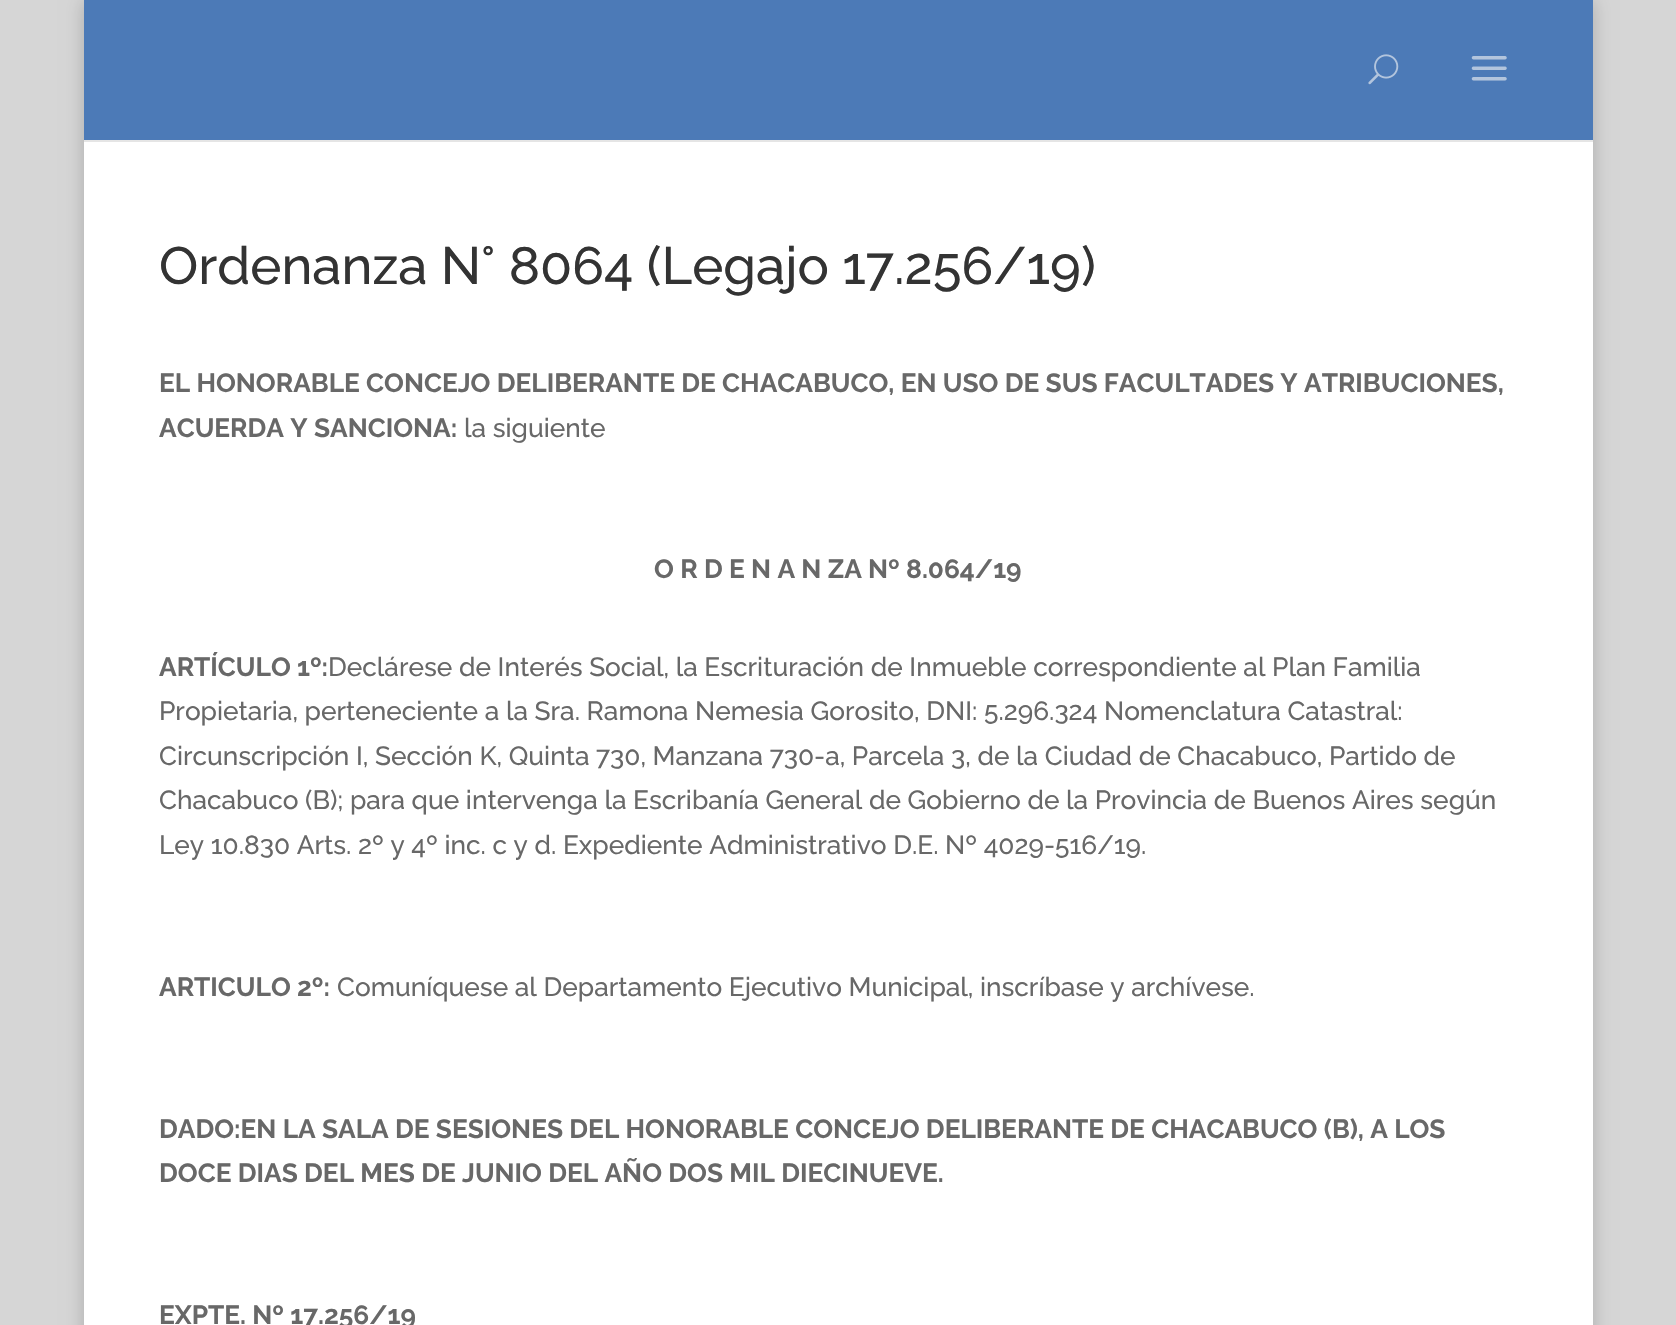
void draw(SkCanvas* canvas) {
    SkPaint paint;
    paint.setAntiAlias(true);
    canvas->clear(0xFFD6D6D6);
    paint.setColor(0x33000000);
    paint.setMaskFilter(SkMaskFilter::MakeBlur(kNormal_SkBlurStyle, 9));
    canvas->drawRect(SkRect::MakeXYWH(84, 0, 1509, 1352), paint);
    paint.setMaskFilter(nullptr);
    paint.setColor(0xFFFFFFFF);
    canvas->drawRect(SkRect::MakeXYWH(84, 140, 1509, 1185), paint);
    paint.setColor(0x1A000000);
    canvas->drawPath(SkPathBuilder().moveTo(84, 140).lineTo(84, 142).lineTo(1593, 142).lineTo(1593, 2).lineTo(1592, 2).lineTo(1592, 140).close().detach(), paint);
    paint.setColor(0xFF4C7AB7);
    canvas->drawRect(SkRect::MakeXYWH(84, 0, 1509, 140), paint);
    canvas->drawImageRect(SkImages::DeferredFromEncodedData(SkData::MakeFromFileName("img1.png")), SkRect::MakeXYWH(1368, 54, 31, 31), SkSamplingOptions());
    canvas->drawImageRect(SkImages::DeferredFromEncodedData(SkData::MakeFromFileName("img2.png")), SkRect::MakeXYWH(1471, 56, 36, 25), SkSamplingOptions());
    SkFont font1(fontMgr->matchFamilyStyle("Raleway", SkFontStyle(100, SkFontStyle::kNormal_Width, SkFontStyle::kUpright_Slant)), 52.5f);
    font1.setSubpixel(true);
    paint.setColor(0xFF333333);
    canvas->drawString("Ordenanza N° 8064 (Legajo 17.256/19)", 159, 284, font1, paint);
    SkFont font2(fontMgr->matchFamilyStyle("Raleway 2", SkFontStyle(100, SkFontStyle::kNormal_Width, SkFontStyle::kUpright_Slant)), 26.25f);
    font2.setSubpixel(true);
    paint.setColor(0xFF686868);
    canvas->drawString("EL HONORABLE CONCEJO DELIBERANTE DE CHACABUCO, EN USO DE SUS FACULTADES Y ATRIBUCIONES,", 159, 392, font2, paint);
    canvas->drawString("ACUERDA Y SANCIONA:", 159, 437, font2, paint);
    SkFont font3(fontMgr->matchFamilyStyle("Raleway", SkFontStyle(100, SkFontStyle::kNormal_Width, SkFontStyle::kUpright_Slant)), 26.25f);
    font3.setSubpixel(true);
    canvas->drawString("la siguiente", 464, 437, font3, paint);
    canvas->drawString("O R D E N A N ZA Nº 8.064/19", 654, 578, font2, paint);
    canvas->drawString("ARTÍCULO 1º:", 159, 676, font2, paint);
    canvas->drawString("Declárese de Interés Social, la Escrituración de Inmueble correspondiente al Plan Familia", 328, 676, font3, paint);
    canvas->drawString("Propietaria, perteneciente a la Sra. Ramona Nemesia Gorosito, DNI: 5.296.324 Nomenclatura Catastral:", 159, 720, font3, paint);
    canvas->drawString("Circunscripción I, Sección K, Quinta 730, Manzana 730-a, Parcela 3, de la Ciudad de Chacabuco, Partido de", 159, 765, font3, paint);
    canvas->drawString("Chacabuco (B); para que intervenga la Escribanía General de Gobierno de la Provincia de Buenos Aires según", 159, 809, font3, paint);
    canvas->drawString("Ley 10.830 Arts. 2º y 4º inc. c y d. Expediente Administrativo D.E. Nº 4029-516/19.", 159, 854, font3, paint);
    canvas->drawString("ARTICULO 2º:", 159, 996, font2, paint);
    canvas->drawString("Comuníquese al Departamento Ejecutivo Municipal, inscríbase y archívese.", 337, 996, font3, paint);
    canvas->drawString("DADO:EN LA SALA DE SESIONES DEL HONORABLE CONCEJO DELIBERANTE DE CHACABUCO (B), A LOS", 159, 1138, font2, paint);
    canvas->drawString("DOCE DIAS DEL MES DE JUNIO DEL AÑO DOS MIL DIECINUEVE.", 159, 1182, font2, paint);
    canvas->drawString("EXPTE. Nº 17.256/19", 159, 1324, font2, paint);
}
